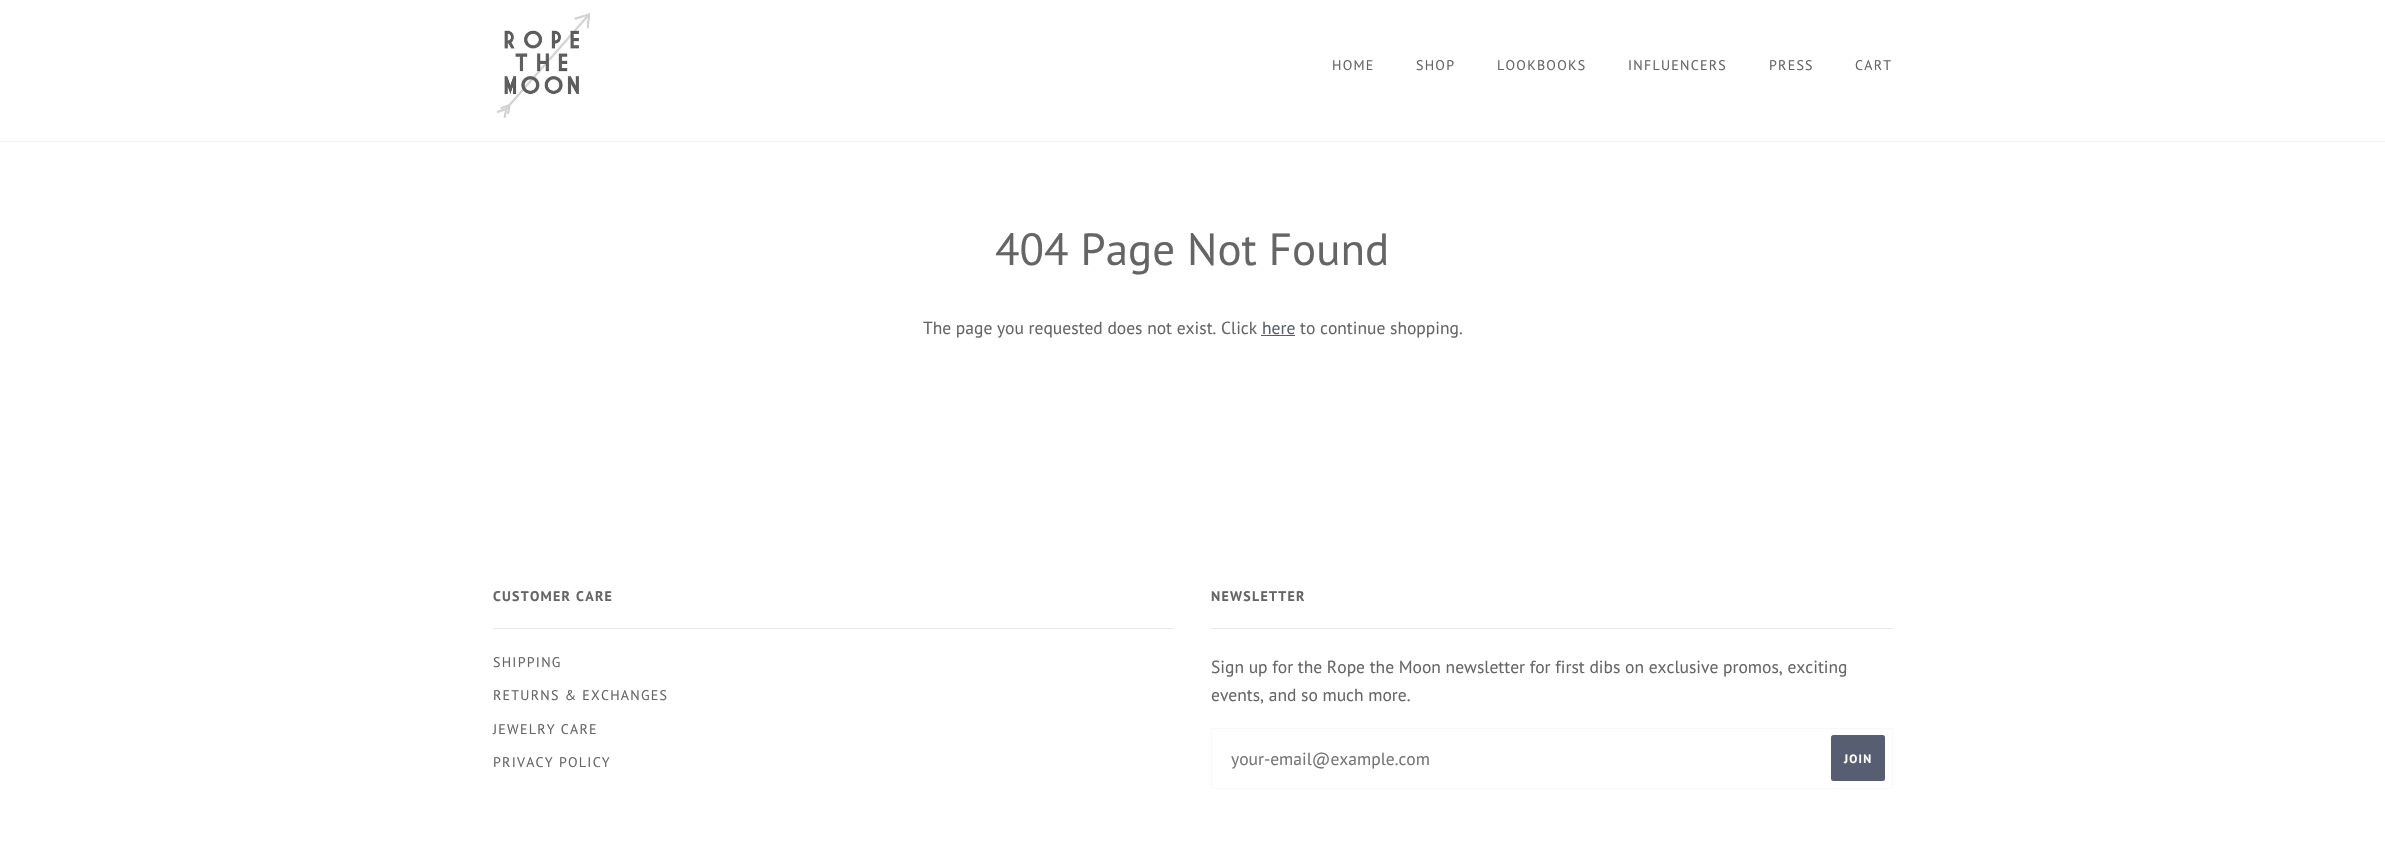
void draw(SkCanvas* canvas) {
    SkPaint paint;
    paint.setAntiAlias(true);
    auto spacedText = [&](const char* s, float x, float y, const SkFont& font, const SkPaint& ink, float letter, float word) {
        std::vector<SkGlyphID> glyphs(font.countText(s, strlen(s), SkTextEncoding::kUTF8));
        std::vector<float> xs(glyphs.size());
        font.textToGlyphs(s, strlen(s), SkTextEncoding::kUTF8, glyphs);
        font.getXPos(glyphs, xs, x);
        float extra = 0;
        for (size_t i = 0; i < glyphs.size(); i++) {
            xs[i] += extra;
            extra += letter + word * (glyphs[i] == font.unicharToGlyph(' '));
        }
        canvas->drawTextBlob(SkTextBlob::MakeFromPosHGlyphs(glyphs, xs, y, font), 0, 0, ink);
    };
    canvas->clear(0xFFFFFFFF);
    paint.setColor(0xFFF3F3F3);
    canvas->drawRect(SkRect::MakeXYWH(0, 141, 2385, 1), paint);
    canvas->drawImageRect(SkImages::DeferredFromEncodedData(SkData::MakeFromFileName("img1.png")), SkRect::MakeXYWH(496, 12, 95, 106), SkSamplingOptions());
    SkFont font1(fontMgr->matchFamilyStyle("PT Sans", SkFontStyle::Normal()), 14);
    font1.setSubpixel(true);
    paint.setColor(0xFF656565);
    spacedText("HOME", 1332, 70, font1, paint, 1.25f, 0);
    spacedText("SHOP", 1416, 70, font1, paint, 1.25f, 0);
    spacedText("LOOKBOOKS", 1497, 70, font1, paint, 1.25f, 0);
    spacedText("INFLUENCERS", 1628, 70, font1, paint, 1.25f, 0);
    spacedText("PRESS", 1769, 70, font1, paint, 1.25f, 0);
    spacedText("CART", 1855, 70, font1, paint, 1.25f, 0);
    SkFont font2(fontMgr->matchFamilyStyle("PT Sans", SkFontStyle::Normal()), 45);
    font2.setSubpixel(true);
    canvas->drawString("404 Page Not Found", 995, 265, font2, paint);
    SkFont font3(fontMgr->matchFamilyStyle("PT Sans", SkFontStyle::Normal()), 17.5f);
    font3.setSubpixel(true);
    canvas->drawString("The page you requested does not exist. Click", 923, 334, font3, paint);
    paint.setColor(0xFF585E71);
    canvas->drawString("here", 1262, 334, font3, paint);
    canvas->drawRect(SkRect::MakeXYWH(1261, 335, 34, 1), paint);
    paint.setColor(0xFF656565);
    canvas->drawString("to continue shopping.", 1300, 334, font3, paint);
    SkFont font4(fontMgr->matchFamilyStyle("PT Sans", SkFontStyle::Bold()), 14);
    font4.setSubpixel(true);
    spacedText("CUSTOMER CARE", 493, 601, font4, paint, 1.25f, 0);
    paint.setColor(0xFFE8E8E8);
    canvas->drawRect(SkRect::MakeXYWH(493, 628, 681, 1), paint);
    paint.setColor(0xFF656565);
    spacedText("SHIPPING", 493, 667, font1, paint, 1.25f, 0);
    spacedText("RETURNS & EXCHANGES", 493, 700, font1, paint, 1.25f, 0);
    spacedText("JEWELRY CARE", 493, 734, font1, paint, 1.25f, 0);
    spacedText("PRIVACY POLICY", 493, 767, font1, paint, 1.25f, 0);
    spacedText("NEWSLETTER", 1211, 601, font4, paint, 1.25f, 0);
    paint.setColor(0xFFE8E8E8);
    canvas->drawRect(SkRect::MakeXYWH(1211, 628, 682, 1), paint);
    paint.setColor(0xFF656565);
    canvas->drawString("Sign up for the Rope the Moon newsletter for first dibs on exclusive promos, exciting", 1211, 673, font3, paint);
    canvas->drawString("events, and so much more.", 1211, 701, font3, paint);
    paint.setStyle(SkPaint::kStroke_Style);
    paint.setStrokeWidth(1);
    paint.setColor(0xFFF7F7F7);
    canvas->drawRoundRect(SkRect::MakeXYWH(1211.5f, 728.5f, 681, 60), 2, 2, paint);
    paint.setStyle(SkPaint::kFill_Style);
    paint.setColor(0xFF757575);
    canvas->drawString("your-email@example.com", 1231, 765, font3, paint);
    paint.setColor(0xFF585E71);
    canvas->drawRoundRect(SkRect::MakeXYWH(1831, 735, 54, 46), 2.5f, 2.5f, paint);
    SkFont font5(fontMgr->matchFamilyStyle("PT Sans", SkFontStyle::Bold()), 12);
    font5.setSubpixel(true);
    paint.setColor(0xFFFFFFFF);
    spacedText("JOIN", 1844, 763, font5, paint, 1.25f, 0);
}
